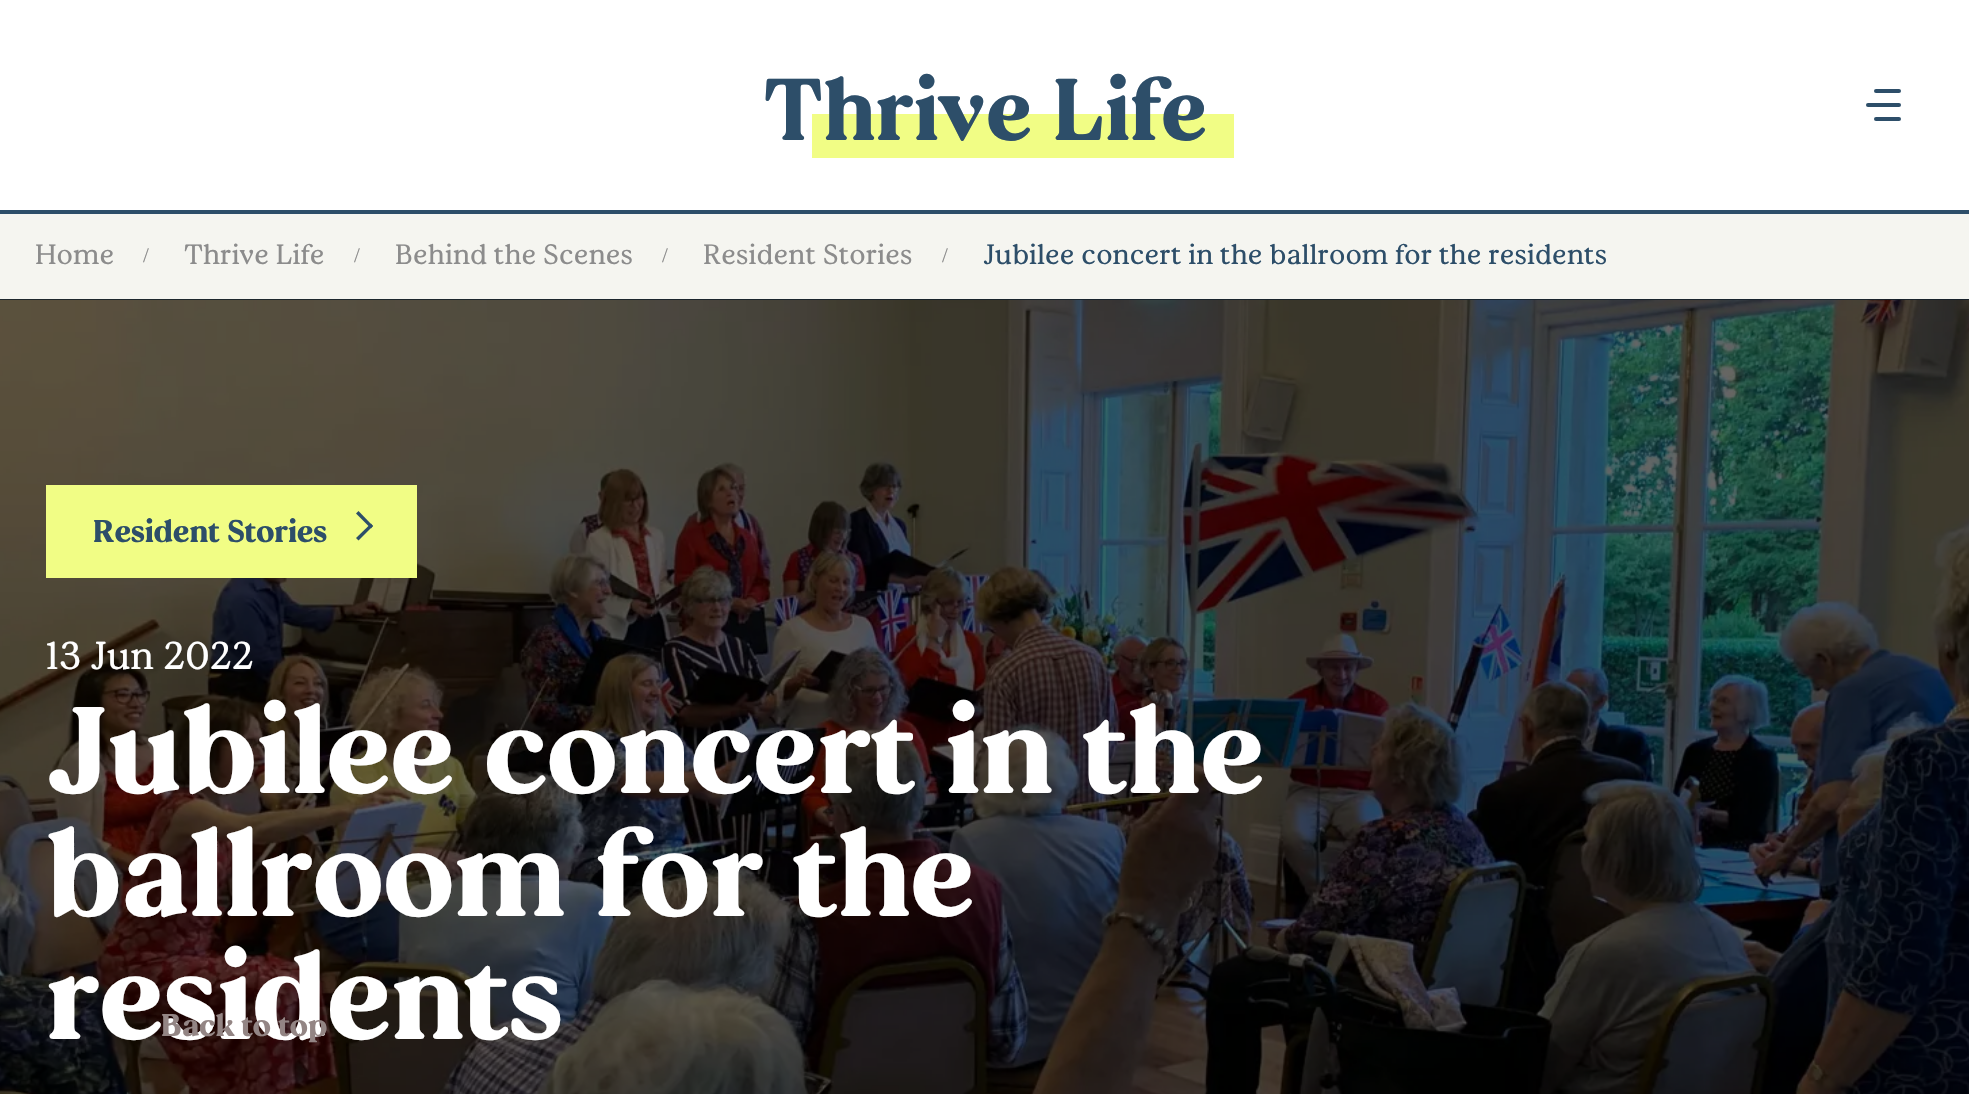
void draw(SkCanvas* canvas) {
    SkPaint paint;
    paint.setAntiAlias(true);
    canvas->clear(0xFF121F2A);
    paint.setColor(0xFFFFFFFF);
    canvas->drawRect(SkRect::MakeXYWH(0, 0, 1969, 210), paint);
    paint.setColor(0xFF2D4E69);
    canvas->drawRect(SkRect::MakeXYWH(0, 210, 1969, 4), paint);
    paint.setColor(0xFFF1FD85);
    canvas->drawRect(SkRect::MakeXYWH(812, 114, 422, 44), paint);
    SkFont font1(fontMgr->matchFamilyStyle("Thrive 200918", SkFontStyle::Bold()), 87.5f);
    font1.setSubpixel(true);
    paint.setColor(0xFF2D4E69);
    canvas->drawString("Thrive Life", 763, 140, font1, paint);
    canvas->drawRoundRect(SkRect::MakeXYWH(1866, 103, 35, 4), 2, 2, paint);
    canvas->drawRoundRect(SkRect::MakeXYWH(1874, 89, 27, 4), 2, 2, paint);
    canvas->drawRoundRect(SkRect::MakeXYWH(1874, 117, 27, 4), 2, 2, paint);
    paint.setColor(0xFFF5F5F0);
    canvas->drawRect(SkRect::MakeXYWH(0, 214, 1969, 85), paint);
    SkFont font2(fontMgr->matchFamilyStyle("Thrive 200918", SkFontStyle::Normal()), 28);
    font2.setSubpixel(true);
    paint.setColor(0xFF8C8C8C);
    canvas->drawString("Home", 35, 264, font2, paint);
    SkFont font3(fontMgr->matchFamilyStyle("Liberation Serif", SkFontStyle::Normal()), 21);
    font3.setSubpixel(true);
    canvas->drawString("/", 143, 262, font3, paint);
    canvas->drawString("Thrive Life", 184, 264, font2, paint);
    canvas->drawString("/", 354, 262, font3, paint);
    canvas->drawString("Behind the Scenes", 395, 264, font2, paint);
    canvas->drawString("/", 662, 262, font3, paint);
    canvas->drawString("Resident Stories", 703, 264, font2, paint);
    canvas->drawString("/", 942, 262, font3, paint);
    paint.setColor(0xFF2D4E69);
    canvas->drawString("Jubilee concert in the ballroom for the residents", 983, 264, font2, paint);
    canvas->drawImageRect(SkImages::DeferredFromEncodedData(SkData::MakeFromFileName("img1.png")), SkRect::MakeXYWH(0, 299, 1969, 795), SkSamplingOptions());
    paint.setColor(0xFFF1FD85);
    canvas->drawRect(SkRect::MakeXYWH(46, 485, 371, 93), paint);
    SkFont font4(fontMgr->matchFamilyStyle("Thrive 200918", SkFontStyle::Bold()), 31.5f);
    font4.setSubpixel(true);
    paint.setColor(0xFF2D4E69);
    canvas->drawString("Resident Stories", 93, 542, font4, paint);
    canvas->drawPath(SkPathBuilder().moveTo(358.5f, 511).lineTo(373, 526).lineTo(371, 528.5f).lineTo(356, 513.5f).close().detach(), paint);
    canvas->drawPath(SkPathBuilder().moveTo(371, 523.5f).lineTo(373, 526).lineTo(358.5f, 540.5f).lineTo(356, 538).close().detach(), paint);
    SkFont font5(fontMgr->matchFamilyStyle("Thrive 200918", SkFontStyle::Normal()), 38.75f);
    font5.setSubpixel(true);
    paint.setColor(0xFFFFFFFF);
    canvas->drawString("13 Jun 2022", 46, 669, font5, paint);
    SkFont font6(fontMgr->matchFamilyStyle("Thrive 200918", SkFontStyle::Bold()), 122.9f);
    font6.setSubpixel(true);
    canvas->drawString("Jubilee concert in the", 46, 793, font6, paint);
    canvas->drawString("ballroom for the", 46, 916, font6, paint);
    canvas->drawString("residents", 46, 1039, font6, paint);
    paint.setColor(0xFF938584);
    canvas->drawString("Back to top", 161, 1036, font4, paint);
}
